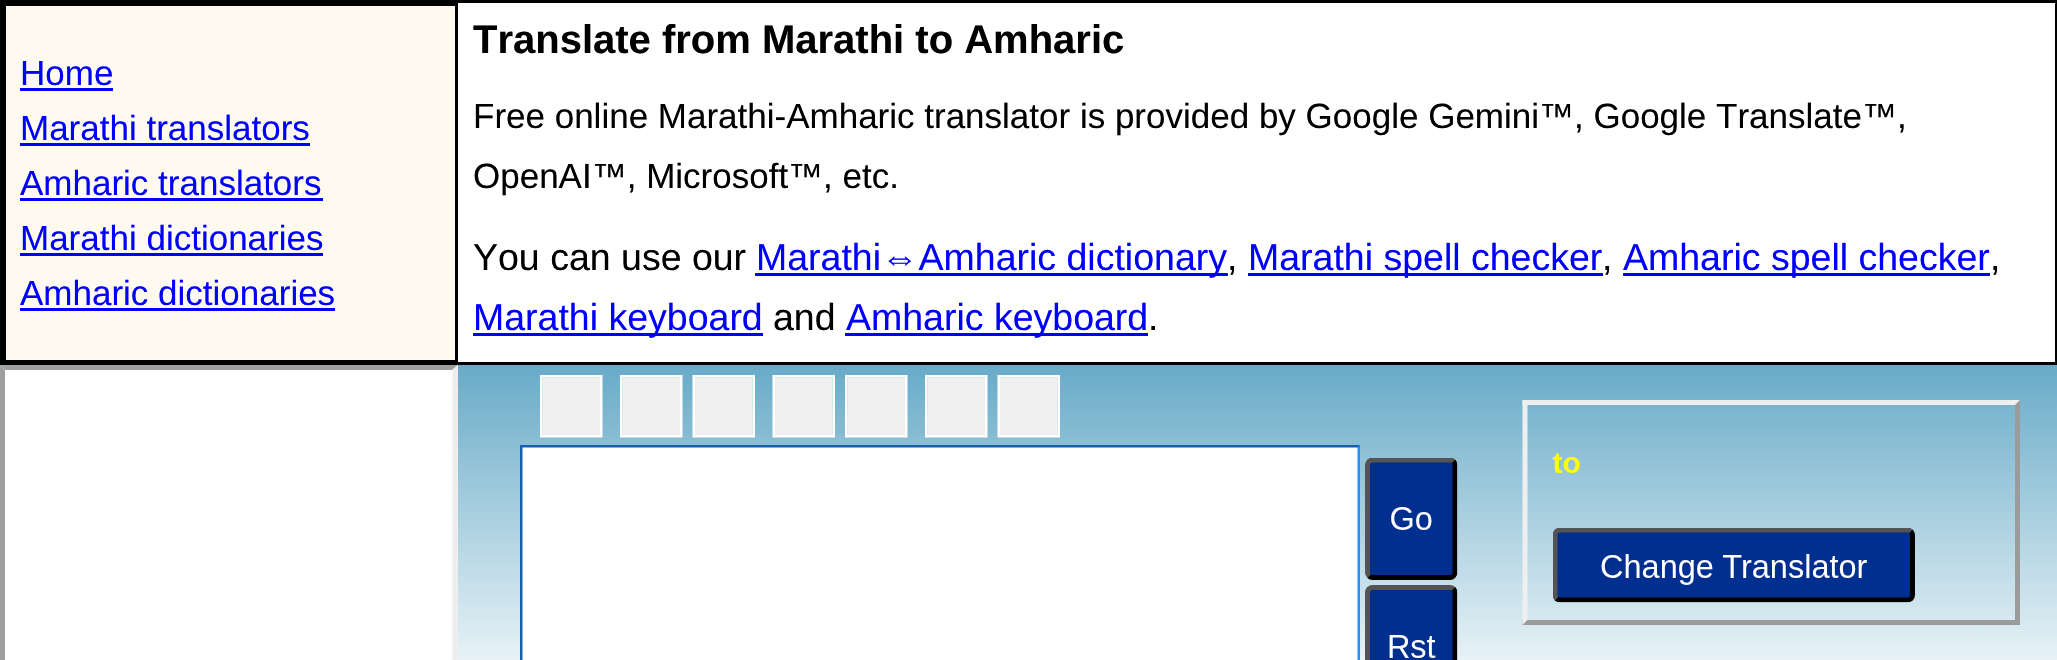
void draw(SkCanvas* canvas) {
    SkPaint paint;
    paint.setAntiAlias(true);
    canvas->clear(0xFFFFFFFF);
    paint.setStyle(SkPaint::kStroke_Style);
    paint.setStrokeWidth(3);
    paint.setColor(0xFF000000);
    canvas->drawRect(SkRect::MakeXYWH(1.5f, 1.5f, 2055, 362), paint);
    paint.setStyle(SkPaint::kFill_Style);
    paint.setColor(0xFFFEFAEF);
    canvas->drawRect(SkRect::MakeXYWH(4.5f, 4.5f, 452, 357), paint);
    paint.setStyle(SkPaint::kStroke_Style);
    paint.setColor(0xFF000000);
    canvas->drawRect(SkRect::MakeXYWH(4.5f, 4.5f, 452, 357), paint);
    SkFont font1(fontMgr->matchFamilyStyle("Liberation Sans", SkFontStyle::Normal()), 35);
    font1.setSubpixel(true);
    paint.setStyle(SkPaint::kFill_Style);
    paint.setColor(0xFF0000FF);
    canvas->drawString("Home", 20, 85, font1, paint);
    canvas->drawRect(SkRect::MakeXYWH(20, 88, 93, 3), paint);
    canvas->drawString("Marathi translators", 20, 140, font1, paint);
    canvas->drawRect(SkRect::MakeXYWH(20, 143, 290, 3), paint);
    canvas->drawString("Amharic translators", 20, 195, font1, paint);
    canvas->drawRect(SkRect::MakeXYWH(20, 198, 303, 3), paint);
    canvas->drawString("Marathi dictionaries", 20, 250, font1, paint);
    canvas->drawRect(SkRect::MakeXYWH(20, 253, 303, 3), paint);
    canvas->drawString("Amharic dictionaries", 20, 305, font1, paint);
    canvas->drawRect(SkRect::MakeXYWH(20, 308, 315, 3), paint);
    SkFont font2(fontMgr->matchFamilyStyle("Liberation Sans", SkFontStyle::Bold()), 40);
    font2.setSubpixel(true);
    paint.setColor(0xFF000000);
    canvas->drawString("Translate from Marathi to Amharic", 473, 53, font2, paint);
    canvas->drawString("Free online Marathi-Amharic translator is provided by Google Gemini™, Google Translate™,", 473, 128, font1, paint);
    canvas->drawString("OpenAI™, Microsoft™, etc.", 473, 188, font1, paint);
    SkFont font3(fontMgr->matchFamilyStyle("Liberation Sans", SkFontStyle::Normal()), 37.5f);
    font3.setSubpixel(true);
    canvas->drawString("You can use our", 473, 270, font3, paint);
    paint.setColor(0xFF0000FF);
    canvas->drawRect(SkRect::MakeXYWH(755, 273, 473, 3), paint);
    canvas->drawString("Marathi⇔Amharic dictionary", 756, 270, font3, paint);
    paint.setColor(0xFF000000);
    canvas->drawString(",", 1227, 270, font3, paint);
    paint.setColor(0xFF0000FF);
    canvas->drawRect(SkRect::MakeXYWH(1248, 273, 355, 3), paint);
    canvas->drawString("Marathi spell checker", 1248, 270, font3, paint);
    paint.setColor(0xFF000000);
    canvas->drawString(",", 1602, 270, font3, paint);
    paint.setColor(0xFF0000FF);
    canvas->drawRect(SkRect::MakeXYWH(1623, 273, 367, 3), paint);
    canvas->drawString("Amharic spell checker", 1623, 270, font3, paint);
    paint.setColor(0xFF000000);
    canvas->drawString(",", 1990, 270, font3, paint);
    paint.setColor(0xFF0000FF);
    canvas->drawRect(SkRect::MakeXYWH(473, 333, 290, 3), paint);
    canvas->drawString("Marathi keyboard", 473, 330, font3, paint);
    paint.setColor(0xFF000000);
    canvas->drawString("and", 773, 330, font3, paint);
    paint.setColor(0xFF0000FF);
    canvas->drawRect(SkRect::MakeXYWH(845, 333, 303, 3), paint);
    canvas->drawString("Amharic keyboard", 846, 330, font3, paint);
    paint.setColor(0xFF000000);
    canvas->drawString(".", 1148, 330, font3, paint);
    paint.setColor(0xFF9F9F9F);
    canvas->drawPath(SkPathBuilder().moveTo(0, 365).lineTo(458, 365).lineTo(452, 370).lineTo(5, 370).close().detach(), paint);
    canvas->drawPath(SkPathBuilder().moveTo(0, 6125).lineTo(0, 365).lineTo(5, 370).lineTo(5, 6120).close().detach(), paint);
    paint.setColor(0xFFEEEEEE);
    canvas->drawPath(SkPathBuilder().moveTo(458, 365).lineTo(458, 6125).lineTo(452, 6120).lineTo(452, 370).close().detach(), paint);
    paint.setColor(0xFFF2F2F2);
    canvas->drawRect(SkRect::MakeXYWH(452, 370, 1, 290), paint);
    canvas->drawImageRect(SkImages::DeferredFromEncodedData(SkData::MakeFromFileName("img1.png")), SkRect::MakeXYWH(458, 365, 1599, 295), SkSamplingOptions());
}
